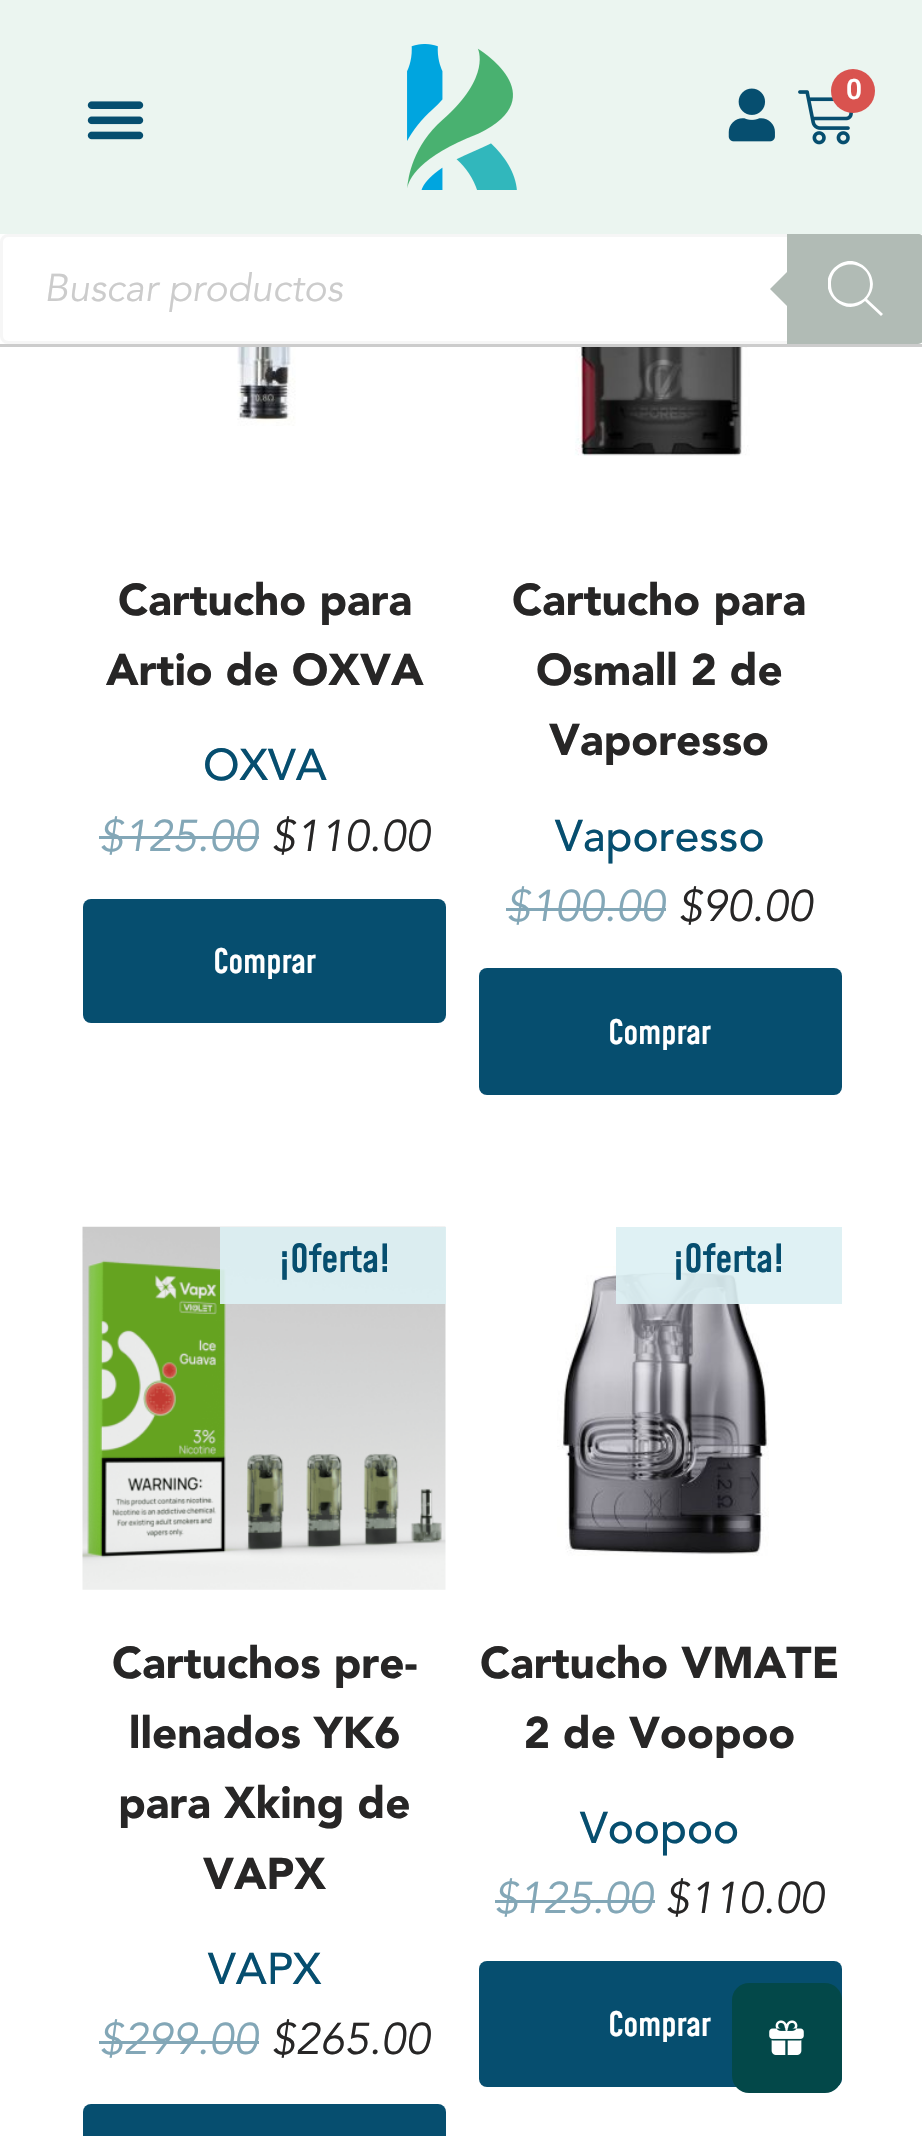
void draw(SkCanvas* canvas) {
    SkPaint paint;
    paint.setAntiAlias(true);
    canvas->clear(0xFFFFFFFF);
    paint.setColor(0xFFEBF5F0);
    canvas->drawRect(SkRect::MakeXYWH(0, 0, 922, 234), paint);
    canvas->drawImageRect(SkImages::DeferredFromEncodedData(SkData::MakeFromFileName("img1.png")), SkRect::MakeXYWH(407, 44, 110, 146), SkSamplingOptions());
    canvas->drawImageRect(SkImages::DeferredFromEncodedData(SkData::MakeFromFileName("img2.png")), SkRect::MakeXYWH(728, 88, 47, 54), SkSamplingOptions());
    canvas->drawImageRect(SkImages::DeferredFromEncodedData(SkData::MakeFromFileName("img3.png")), SkRect::MakeXYWH(798, 90, 56, 55), SkSamplingOptions());
    paint.setColor(0xFFD9534F);
    canvas->drawCircle(853, 91, 22, paint);
    SkFont font1(fontMgr->matchFamilyStyle("Roboto", SkFontStyle(600, SkFontStyle::kNormal_Width, SkFontStyle::kUpright_Slant)), 28);
    font1.setSubpixel(true);
    paint.setColor(0xFFFFFFFF);
    canvas->drawString("0", 846, 99, font1, paint);
    canvas->drawImageRect(SkImages::DeferredFromEncodedData(SkData::MakeFromFileName("img4.png")), SkRect::MakeXYWH(87, 101, 57, 39), SkSamplingOptions());
    paint.setColor(0xFFCCCCCC);
    canvas->drawRect(SkRect::MakeXYWH(0, 344, 922, 3), paint);
    paint.setStyle(SkPaint::kStroke_Style);
    paint.setStrokeWidth(3);
    paint.setColor(0xFFF6F6F6);
    canvas->drawRoundRect(SkRect::MakeXYWH(1.5f, 235.5f, 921, 107), 6.5f, 6.5f, paint);
    SkFont font2(fontMgr->matchFamilyStyle("Avenir", SkFontStyle::Italic()), 38.5f);
    font2.setSubpixel(true);
    paint.setStyle(SkPaint::kFill_Style);
    paint.setColor(0xFFCCCCCC);
    canvas->drawString("Buscar productos", 44, 301, font2, paint);
    paint.setColor(0xFFB1BBB5);
    canvas->drawPath(SkPathBuilder().moveTo(787, 234).lineTo(918, 234).cubicTo(921.5f, 234, 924, 236.5f, 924, 240).lineTo(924, 338).cubicTo(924, 341.5f, 921.5f, 344, 918, 344).lineTo(787, 344).close().detach(), paint);
    canvas->drawPath(SkPathBuilder().moveTo(792, 267).lineTo(792, 311).lineTo(770, 289).close().detach(), paint);
    canvas->save();
    canvas->clipRect(SkRect::MakeXYWH(828, 253, 55, 72));
    paint.setColor(0xFFFFFFFF);
    canvas->drawPath(SkPathBuilder().moveTo(883, 314).lineTo(867, 299).cubicTo(886, 277, 855, 247, 834, 268).cubicTo(814, 289, 844, 320, 865, 301).lineTo(881, 316).close().moveTo(831, 284).cubicTo(831, 258, 870, 258, 870, 284).cubicTo(870, 310, 831, 310, 831, 284).close().detach(), paint);
    canvas->restore();
    canvas->drawImageRect(SkImages::DeferredFromEncodedData(SkData::MakeFromFileName("img5.png")), SkRect::MakeXYWH(237, 347, 59, 79), SkSamplingOptions());
    SkFont font3(fontMgr->matchFamilyStyle("Avenir", SkFontStyle(900, SkFontStyle::kNormal_Width, SkFontStyle::kUpright_Slant)), 44);
    font3.setSubpixel(true);
    paint.setColor(0xFF272626);
    canvas->drawString("Cartucho para", 118, 615, font3, paint);
    canvas->drawString("Artio de OXVA", 106, 685, font3, paint);
    SkFont font4(fontMgr->matchFamilyStyle("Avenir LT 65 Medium", SkFontStyle(500, SkFontStyle::kNormal_Width, SkFontStyle::kUpright_Slant)), 44);
    font4.setSubpixel(true);
    paint.setColor(0xFF064E6F);
    canvas->drawString("OXVA", 203, 780, font4, paint);
    SkFont font5(fontMgr->matchFamilyStyle("Avenir", SkFontStyle::Italic()), 44);
    font5.setSubpixel(true);
    paint.setColor(0xFF83A7B7);
    canvas->drawString("$125.00", 99, 851, font5, paint);
    canvas->drawRect(SkRect::MakeXYWH(99, 836, 160, 3), paint);
    paint.setColor(0xFF272626);
    canvas->drawString("$110.00", 271, 851, font5, paint);
    paint.setColor(0xFF064E6F);
    canvas->drawRoundRect(SkRect::MakeXYWH(83, 899, 363, 124), 8, 8, paint);
    SkFont font6(fontMgr->matchFamilyStyle("Mohave", SkFontStyle(500, SkFontStyle::kNormal_Width, SkFontStyle::kUpright_Slant)), 33);
    font6.setSubpixel(true);
    paint.setColor(0xFFFFFFFF);
    canvas->drawString("Comprar", 213, 973, font6, paint);
    canvas->drawImageRect(SkImages::DeferredFromEncodedData(SkData::MakeFromFileName("img6.png")), SkRect::MakeXYWH(566, 347, 186, 109), SkSamplingOptions());
    paint.setColor(0xFF272626);
    canvas->drawString("Cartucho para", 512, 615, font3, paint);
    canvas->drawString("Osmall 2 de", 536, 685, font3, paint);
    canvas->drawString("Vaporesso", 549, 755, font3, paint);
    paint.setColor(0xFF064E6F);
    canvas->drawString("Vaporesso", 555, 851, font4, paint);
    paint.setColor(0xFF83A7B7);
    canvas->drawString("$100.00", 506, 921, font5, paint);
    canvas->drawRect(SkRect::MakeXYWH(506, 908, 160, 3), paint);
    paint.setColor(0xFF272626);
    canvas->drawString("$90.00", 678, 921, font5, paint);
    paint.setColor(0xFF064E6F);
    canvas->drawRoundRect(SkRect::MakeXYWH(479, 968, 363, 127), 8, 8, paint);
    paint.setColor(0xFFFFFFFF);
    canvas->drawString("Comprar", 608, 1044, font6, paint);
    canvas->drawImageRect(SkImages::DeferredFromEncodedData(SkData::MakeFromFileName("img7.png")), SkRect::MakeXYWH(82, 1226, 364, 364), SkSamplingOptions());
    paint.setColor(0xEBDCF0F3);
    canvas->drawRect(SkRect::MakeXYWH(220, 1227, 226, 77), paint);
    SkFont font7(fontMgr->matchFamilyStyle("Mohave", SkFontStyle(500, SkFontStyle::kNormal_Width, SkFontStyle::kUpright_Slant)), 38);
    font7.setSubpixel(true);
    paint.setColor(0xFF064E6F);
    canvas->drawString("¡Oferta!", 279, 1272, font7, paint);
    paint.setColor(0xFF272626);
    canvas->drawString("Cartuchos pre-", 112, 1678, font3, paint);
    canvas->drawString("llenados YK6", 129, 1748, font3, paint);
    canvas->drawString("para Xking de", 118, 1818, font3, paint);
    canvas->drawString("VAPX", 203, 1889, font3, paint);
    paint.setColor(0xFF064E6F);
    canvas->drawString("VAPX", 208, 1984, font4, paint);
    paint.setColor(0xFF83A7B7);
    canvas->drawString("$299.00", 99, 2054, font5, paint);
    canvas->drawRect(SkRect::MakeXYWH(99, 2041, 160, 3), paint);
    paint.setColor(0xFF272626);
    canvas->drawString("$265.00", 271, 2054, font5, paint);
    paint.setColor(0xFF064E6F);
    canvas->drawRoundRect(SkRect::MakeXYWH(83, 2104, 363, 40), 8, 8, paint);
    canvas->drawImageRect(SkImages::DeferredFromEncodedData(SkData::MakeFromFileName("img8.png")), SkRect::MakeXYWH(557, 1266, 212, 290), SkSamplingOptions());
    paint.setColor(0xEBDCF0F3);
    canvas->drawRect(SkRect::MakeXYWH(616, 1227, 226, 77), paint);
    paint.setColor(0xFF064E6F);
    canvas->drawString("¡Oferta!", 673, 1272, font7, paint);
    paint.setColor(0xFF272626);
    canvas->drawString("Cartucho VMATE", 480, 1678, font3, paint);
    canvas->drawString("2 de Voopoo", 524, 1748, font3, paint);
    paint.setColor(0xFF064E6F);
    canvas->drawString("Voopoo", 580, 1843, font4, paint);
    paint.setColor(0xFF83A7B7);
    canvas->drawString("$125.00", 494, 1913, font5, paint);
    canvas->drawRect(SkRect::MakeXYWH(495, 1900, 160, 3), paint);
    paint.setColor(0xFF272626);
    canvas->drawString("$110.00", 665, 1913, font5, paint);
    paint.setColor(0xFF064E6F);
    canvas->drawRoundRect(SkRect::MakeXYWH(479, 1961, 363, 126), 8, 8, paint);
    paint.setColor(0xFFFFFFFF);
    canvas->drawString("Comprar", 608, 2036, font6, paint);
    paint.setColor(0xFF034849);
    canvas->drawRoundRect(SkRect::MakeXYWH(732, 1983, 110, 110), 17, 17, paint);
    canvas->drawImageRect(SkImages::DeferredFromEncodedData(SkData::MakeFromFileName("img9.png")), SkRect::MakeXYWH(769, 2020, 35, 35), SkSamplingOptions());
}
